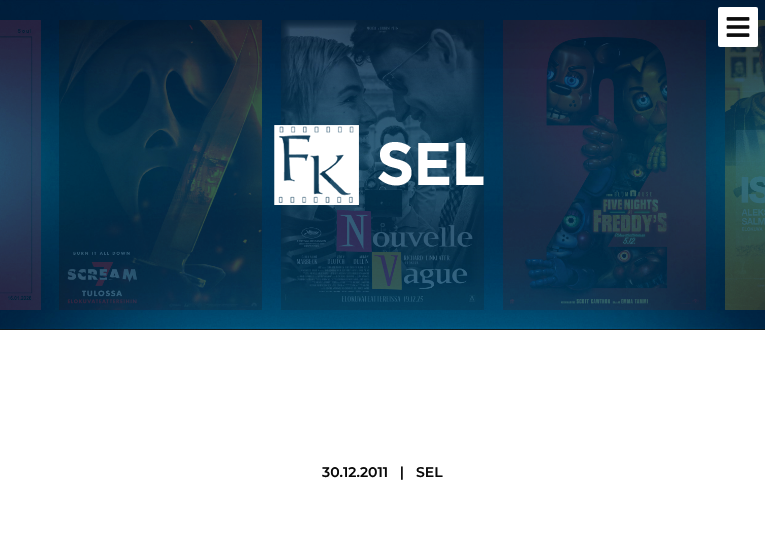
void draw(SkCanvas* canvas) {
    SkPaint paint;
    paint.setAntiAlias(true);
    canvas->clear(0xFFFFFFFF);
    canvas->drawImageRect(SkImages::DeferredFromEncodedData(SkData::MakeFromFileName("img1.png")), SkRect::MakeXYWH(0, 0, 765, 330), SkSamplingOptions());
    canvas->drawImageRect(SkImages::DeferredFromEncodedData(SkData::MakeFromFileName("img2.png")), SkRect::MakeXYWH(0, 20, 41, 290), SkSamplingOptions());
    canvas->drawImageRect(SkImages::DeferredFromEncodedData(SkData::MakeFromFileName("img3.png")), SkRect::MakeXYWH(59, 20, 203, 290), SkSamplingOptions());
    canvas->drawImageRect(SkImages::DeferredFromEncodedData(SkData::MakeFromFileName("img4.png")), SkRect::MakeXYWH(281, 20, 203, 290), SkSamplingOptions());
    canvas->drawImageRect(SkImages::DeferredFromEncodedData(SkData::MakeFromFileName("img5.png")), SkRect::MakeXYWH(503, 20, 203, 290), SkSamplingOptions());
    canvas->drawImageRect(SkImages::DeferredFromEncodedData(SkData::MakeFromFileName("img6.png")), SkRect::MakeXYWH(725, 20, 40, 290), SkSamplingOptions());
    canvas->drawImageRect(SkImages::DeferredFromEncodedData(SkData::MakeFromFileName("img7.png")), SkRect::MakeXYWH(274, 125, 210, 80), SkSamplingOptions());
    paint.setColor(0xFFFFFFFF);
    canvas->drawRoundRect(SkRect::MakeXYWH(718, 7, 40, 40), 2, 2, paint);
    canvas->drawImageRect(SkImages::DeferredFromEncodedData(SkData::MakeFromFileName("img8.png")), SkRect::MakeXYWH(726, 17, 24, 20), SkSamplingOptions());
    SkFont font1(fontMgr->matchFamilyStyle("Montserrat", SkFontStyle(600, SkFontStyle::kNormal_Width, SkFontStyle::kUpright_Slant)), 14);
    font1.setSubpixel(true);
    paint.setColor(0xFF0A0A0A);
    canvas->drawString("30.12.2011   |", 322, 477, font1, paint);
    canvas->drawString("SEL", 416, 477, font1, paint);
}
